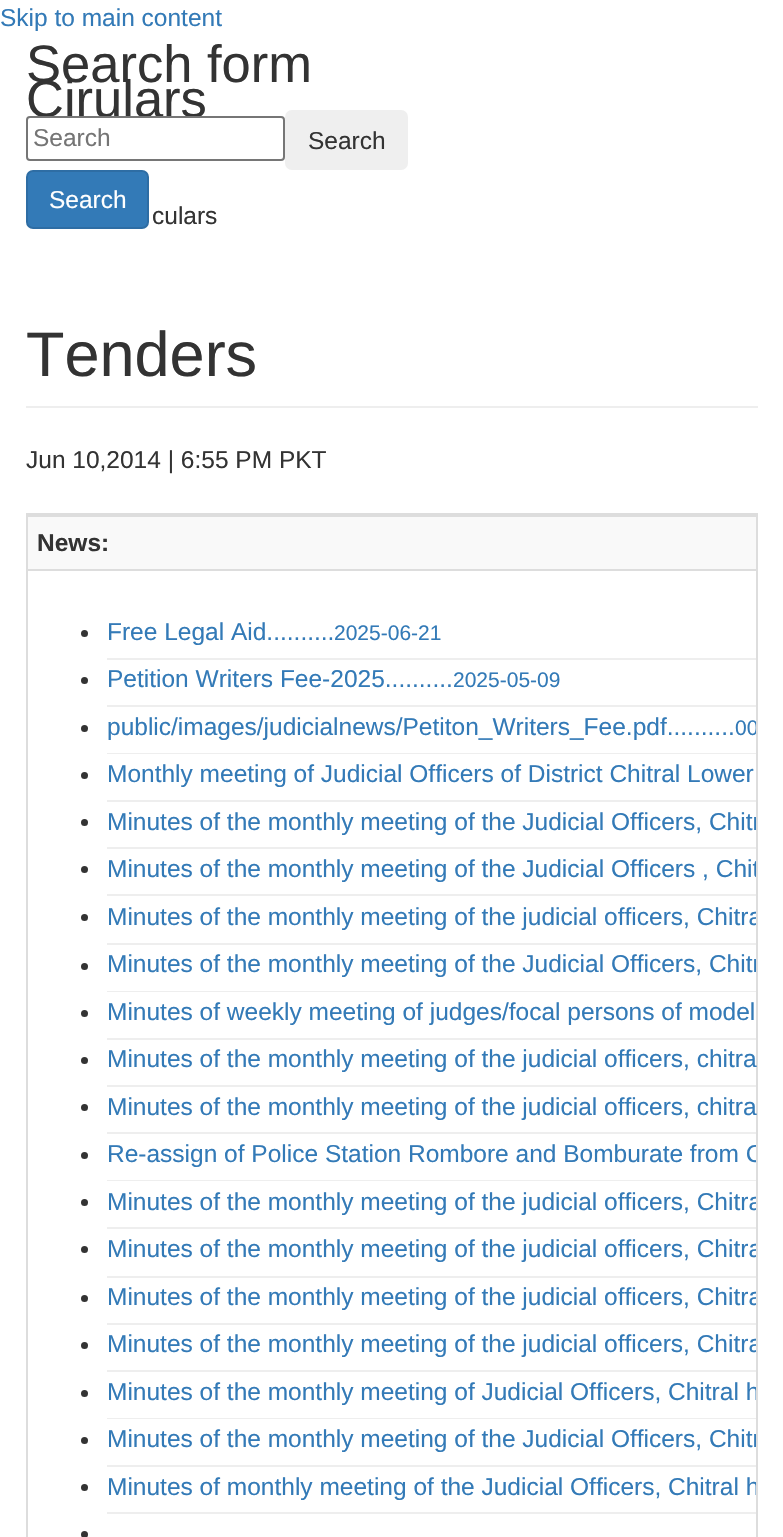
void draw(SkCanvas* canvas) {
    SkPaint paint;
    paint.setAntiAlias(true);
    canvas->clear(0xFFFFFFFF);
    SkFont font1(fontMgr->matchFamilyStyle("Liberation Sans", SkFontStyle::Normal()), 24.5f);
    font1.setSubpixel(true);
    paint.setColor(0xFF337AB7);
    canvas->drawString("Skip to main content", 0, 26, font1, paint);
    SkFont font2(fontMgr->matchFamilyStyle("Liberation Sans", SkFontStyle::Normal()), 52.5f);
    font2.setSubpixel(true);
    paint.setColor(0xFF333333);
    canvas->drawString("Search form", 26, 82, font2, paint);
    canvas->drawString("Cirulars", 26, 117, font2, paint);
    paint.setColor(0xFFFFFFFF);
    canvas->drawRoundRect(SkRect::MakeXYWH(27, 117, 257, 43), 3, 3, paint);
    paint.setStyle(SkPaint::kStroke_Style);
    paint.setStrokeWidth(2);
    paint.setColor(0xFF767676);
    canvas->drawRoundRect(SkRect::MakeXYWH(27, 117, 257, 43), 3, 3, paint);
    paint.setStyle(SkPaint::kFill_Style);
    paint.setColor(0xFF757575);
    canvas->drawString("Search", 33, 146, font1, paint);
    paint.setColor(0xFFEFEFEF);
    canvas->drawRoundRect(SkRect::MakeXYWH(285, 110, 123, 60), 7, 7, paint);
    paint.setColor(0xFF333333);
    canvas->drawString("Search", 308, 149, font1, paint);
    paint.setColor(0xFF337AB7);
    canvas->drawRoundRect(SkRect::MakeXYWH(27, 171, 121, 57), 6, 6, paint);
    paint.setStyle(SkPaint::kStroke_Style);
    paint.setColor(0xFF2E6DA4);
    canvas->drawRoundRect(SkRect::MakeXYWH(27, 171, 121, 57), 6, 6, paint);
    paint.setStyle(SkPaint::kFill_Style);
    paint.setColor(0xFFFFFFFF);
    canvas->drawString("Search", 49, 208, font1, paint);
    paint.setColor(0xFF333333);
    canvas->drawString("culars", 152, 224, font1, paint);
    paint.setColor(0xFFEEEEEE);
    canvas->drawRect(SkRect::MakeXYWH(26, 406, 732, 2), paint);
    SkFont font3(fontMgr->matchFamilyStyle("Liberation Sans", SkFontStyle::Normal()), 63);
    font3.setSubpixel(true);
    paint.setColor(0xFF333333);
    canvas->drawString("Tenders", 26, 376, font3, paint);
    canvas->drawString("Jun 10,2014 | 6:55 PM PKT", 26, 468, font1, paint);
    paint.setStyle(SkPaint::kStroke_Style);
    paint.setColor(0xFFDDDDDD);
    canvas->drawRect(SkRect::MakeXYWH(27, 514, 730, 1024), paint);
    paint.setStyle(SkPaint::kFill_Style);
    paint.setColor(0xFFF9F9F9);
    canvas->drawRect(SkRect::MakeXYWH(28, 517, 728, 52), paint);
    paint.setColor(0xFFDDDDDD);
    canvas->drawRect(SkRect::MakeXYWH(28, 515, 728, 2), paint);
    SkFont font4(fontMgr->matchFamilyStyle("Liberation Sans", SkFontStyle::Bold()), 24.5f);
    font4.setSubpixel(true);
    paint.setColor(0xFF333333);
    canvas->drawString("News:", 37, 551, font4, paint);
    paint.setColor(0xFFDDDDDD);
    canvas->drawRect(SkRect::MakeXYWH(28, 569, 728, 2), paint);
    paint.setColor(0xFF333333);
    canvas->drawCircle(84.5f, 633.5f, 3.5f, paint);
    paint.setColor(0xFF337AB7);
    canvas->drawString("Free Legal Aid..........", 107, 640, font1, paint);
    SkFont font5(fontMgr->matchFamilyStyle("Liberation Sans", SkFontStyle::Normal()), 21);
    font5.setSubpixel(true);
    canvas->drawString("2025-06-21", 334, 640, font5, paint);
    paint.setColor(0xFFEEEEEE);
    canvas->drawRect(SkRect::MakeXYWH(107, 658, 649, 2), paint);
    paint.setColor(0xFF333333);
    canvas->drawCircle(84.5f, 680.5f, 3.5f, paint);
    paint.setColor(0xFF337AB7);
    canvas->drawString("Petition Writers Fee-2025..........", 107, 687, font1, paint);
    canvas->drawString("2025-05-09", 453, 687, font5, paint);
    paint.setColor(0xFFEEEEEE);
    canvas->drawRect(SkRect::MakeXYWH(107, 705, 649, 2), paint);
    paint.setColor(0xFF333333);
    canvas->drawCircle(84.5f, 728.5f, 3.5f, paint);
    paint.setColor(0xFF337AB7);
    canvas->drawString("public/images/judicialnews/Petiton_Writers_Fee.pdf..........", 107, 735, font1, paint);
    canvas->save();
    canvas->clipRect(SkRect::MakeXYWH(28, 515, 728, 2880));
    canvas->drawString("00", 735, 735, font5, paint);
    canvas->restore();
    paint.setColor(0xFFEEEEEE);
    canvas->drawRect(SkRect::MakeXYWH(107, 753, 649, 1), paint);
    paint.setColor(0xFF333333);
    canvas->drawCircle(84.5f, 775.5f, 3.5f, paint);
    paint.setColor(0xFF337AB7);
    canvas->drawString("Monthly meeting of Judicial Officers of District Chitral Lower", 107, 782, font1, paint);
    paint.setColor(0xFFEEEEEE);
    canvas->drawRect(SkRect::MakeXYWH(107, 800, 649, 2), paint);
    paint.setColor(0xFF333333);
    canvas->drawCircle(84.5f, 822.5f, 3.5f, paint);
    canvas->save();
    canvas->clipRect(SkRect::MakeXYWH(28, 515, 728, 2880));
    paint.setColor(0xFF337AB7);
    canvas->drawString("Minutes of the monthly meeting of the Judicial Officers, Chitr", 107, 830, font1, paint);
    canvas->restore();
    paint.setColor(0xFFEEEEEE);
    canvas->drawRect(SkRect::MakeXYWH(107, 847, 649, 2), paint);
    paint.setColor(0xFF333333);
    canvas->drawCircle(84.5f, 869.5f, 3.5f, paint);
    canvas->save();
    canvas->clipRect(SkRect::MakeXYWH(28, 515, 728, 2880));
    paint.setColor(0xFF337AB7);
    canvas->drawString("Minutes of the monthly meeting of the Judicial Officers , Chit", 107, 877, font1, paint);
    canvas->restore();
    paint.setColor(0xFFEEEEEE);
    canvas->drawRect(SkRect::MakeXYWH(107, 894, 649, 2), paint);
    paint.setColor(0xFF333333);
    canvas->drawCircle(84.5f, 917.5f, 3.5f, paint);
    canvas->save();
    canvas->clipRect(SkRect::MakeXYWH(28, 515, 728, 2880));
    paint.setColor(0xFF337AB7);
    canvas->drawString("Minutes of the monthly meeting of the judicial officers, Chitra", 107, 925, font1, paint);
    canvas->restore();
    paint.setColor(0xFFEEEEEE);
    canvas->drawRect(SkRect::MakeXYWH(107, 943, 649, 2), paint);
    paint.setColor(0xFF333333);
    canvas->drawCircle(84.5f, 966.5f, 3.5f, paint);
    canvas->save();
    canvas->clipRect(SkRect::MakeXYWH(28, 515, 728, 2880));
    paint.setColor(0xFF337AB7);
    canvas->drawString("Minutes of the monthly meeting of the Judicial Officers, Chitr", 107, 972, font1, paint);
    canvas->restore();
    paint.setColor(0xFFEEEEEE);
    canvas->drawRect(SkRect::MakeXYWH(107, 991, 649, 1), paint);
    paint.setColor(0xFF333333);
    canvas->drawCircle(84.5f, 1013.5f, 3.5f, paint);
    paint.setColor(0xFF337AB7);
    canvas->drawString("Minutes of weekly meeting of judges/focal persons of model", 107, 1020, font1, paint);
    paint.setColor(0xFFEEEEEE);
    canvas->drawRect(SkRect::MakeXYWH(107, 1038, 649, 2), paint);
    paint.setColor(0xFF333333);
    canvas->drawCircle(84.5f, 1060.5f, 3.5f, paint);
    paint.setColor(0xFF337AB7);
    canvas->drawString("Minutes of the monthly meeting of the judicial officers, chitra", 107, 1067, font1, paint);
    paint.setColor(0xFFEEEEEE);
    canvas->drawRect(SkRect::MakeXYWH(107, 1085, 649, 2), paint);
    paint.setColor(0xFF333333);
    canvas->drawCircle(84.5f, 1107.5f, 3.5f, paint);
    paint.setColor(0xFF337AB7);
    canvas->drawString("Minutes of the monthly meeting of the judicial officers, chitra", 107, 1115, font1, paint);
    paint.setColor(0xFFEEEEEE);
    canvas->drawRect(SkRect::MakeXYWH(107, 1132, 649, 2), paint);
    paint.setColor(0xFF333333);
    canvas->drawCircle(84.5f, 1155.5f, 3.5f, paint);
    canvas->save();
    canvas->clipRect(SkRect::MakeXYWH(28, 515, 728, 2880));
    paint.setColor(0xFF337AB7);
    canvas->drawString("Re-assign of Police Station Rombore and Bomburate from C", 107, 1162, font1, paint);
    canvas->restore();
    paint.setColor(0xFFEEEEEE);
    canvas->drawRect(SkRect::MakeXYWH(107, 1180, 649, 1), paint);
    paint.setColor(0xFF333333);
    canvas->drawCircle(84.5f, 1202.5f, 3.5f, paint);
    canvas->save();
    canvas->clipRect(SkRect::MakeXYWH(28, 515, 728, 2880));
    paint.setColor(0xFF337AB7);
    canvas->drawString("Minutes of the monthly meeting of the judicial officers, Chitra", 107, 1210, font1, paint);
    canvas->restore();
    paint.setColor(0xFFEEEEEE);
    canvas->drawRect(SkRect::MakeXYWH(107, 1227, 649, 2), paint);
    paint.setColor(0xFF333333);
    canvas->drawCircle(84.5f, 1249.5f, 3.5f, paint);
    canvas->save();
    canvas->clipRect(SkRect::MakeXYWH(28, 515, 728, 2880));
    paint.setColor(0xFF337AB7);
    canvas->drawString("Minutes of the monthly meeting of the judicial officers, Chitra", 107, 1257, font1, paint);
    canvas->restore();
    paint.setColor(0xFFEEEEEE);
    canvas->drawRect(SkRect::MakeXYWH(107, 1276, 649, 2), paint);
    paint.setColor(0xFF333333);
    canvas->drawCircle(84.5f, 1298.5f, 3.5f, paint);
    canvas->save();
    canvas->clipRect(SkRect::MakeXYWH(28, 515, 728, 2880));
    paint.setColor(0xFF337AB7);
    canvas->drawString("Minutes of the monthly meeting of the judicial officers, Chitra", 107, 1305, font1, paint);
    canvas->restore();
    paint.setColor(0xFFEEEEEE);
    canvas->drawRect(SkRect::MakeXYWH(107, 1323, 649, 2), paint);
    paint.setColor(0xFF333333);
    canvas->drawCircle(84.5f, 1345.5f, 3.5f, paint);
    canvas->save();
    canvas->clipRect(SkRect::MakeXYWH(28, 515, 728, 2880));
    paint.setColor(0xFF337AB7);
    canvas->drawString("Minutes of the monthly meeting of the judicial officers, Chitra", 107, 1352, font1, paint);
    canvas->restore();
    paint.setColor(0xFFEEEEEE);
    canvas->drawRect(SkRect::MakeXYWH(107, 1370, 649, 2), paint);
    paint.setColor(0xFF333333);
    canvas->drawCircle(84.5f, 1393.5f, 3.5f, paint);
    canvas->save();
    canvas->clipRect(SkRect::MakeXYWH(28, 515, 728, 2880));
    paint.setColor(0xFF337AB7);
    canvas->drawString("Minutes of the monthly meeting of Judicial Officers, Chitral h", 107, 1400, font1, paint);
    canvas->restore();
    paint.setColor(0xFFEEEEEE);
    canvas->drawRect(SkRect::MakeXYWH(107, 1418, 649, 1), paint);
    paint.setColor(0xFF333333);
    canvas->drawCircle(84.5f, 1440.5f, 3.5f, paint);
    canvas->save();
    canvas->clipRect(SkRect::MakeXYWH(28, 515, 728, 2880));
    paint.setColor(0xFF337AB7);
    canvas->drawString("Minutes of the monthly meeting of the Judicial Officers, Chitr", 107, 1447, font1, paint);
    canvas->restore();
    paint.setColor(0xFFEEEEEE);
    canvas->drawRect(SkRect::MakeXYWH(107, 1465, 649, 2), paint);
    paint.setColor(0xFF333333);
    canvas->drawCircle(84.5f, 1487.5f, 3.5f, paint);
    canvas->save();
    canvas->clipRect(SkRect::MakeXYWH(28, 515, 728, 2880));
    paint.setColor(0xFF337AB7);
    canvas->drawString("Minutes of monthly meeting of the Judicial Officers, Chitral h", 107, 1495, font1, paint);
    canvas->restore();
    paint.setColor(0xFFEEEEEE);
    canvas->drawRect(SkRect::MakeXYWH(107, 1512, 649, 2), paint);
    paint.setColor(0xFF333333);
    canvas->drawCircle(84.5f, 1534.5f, 3.5f, paint);
}
